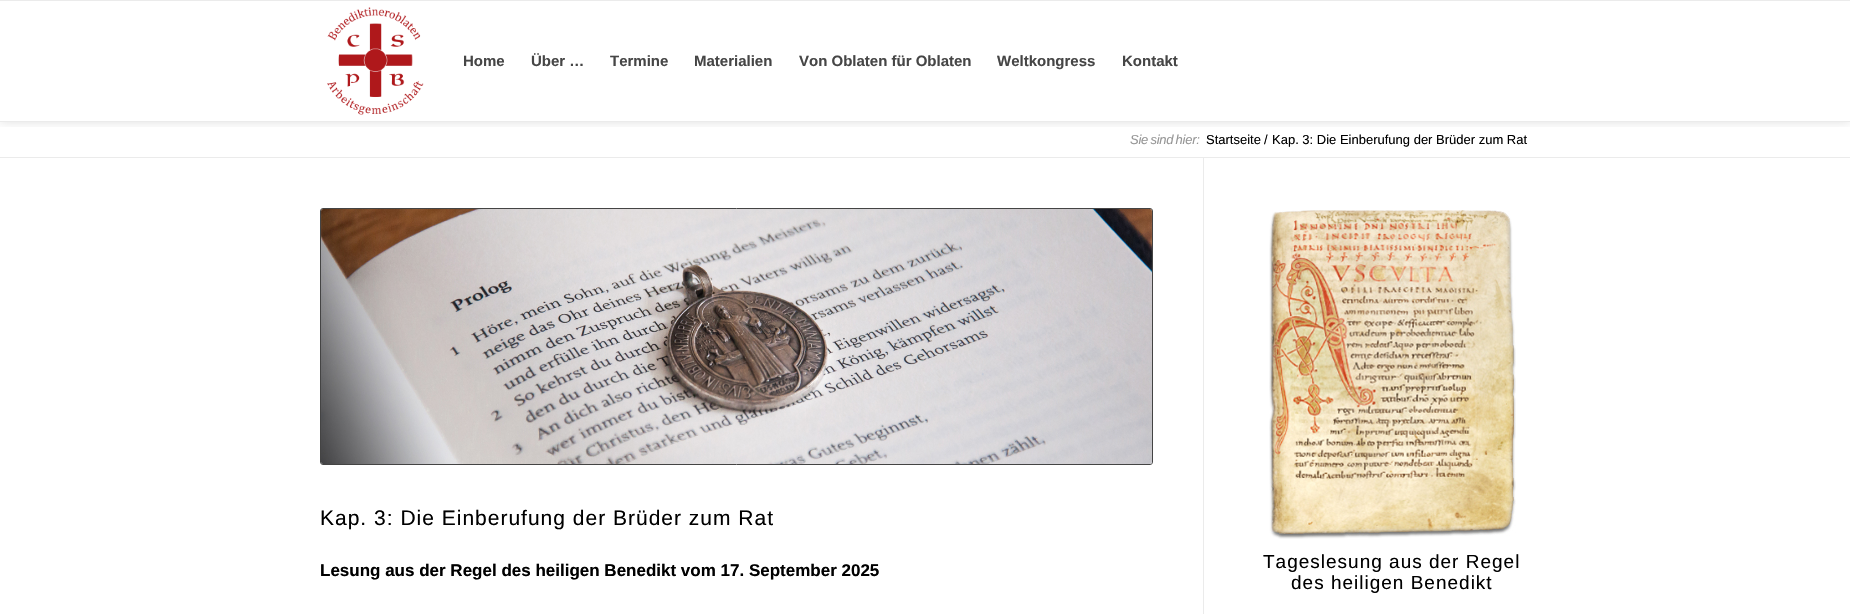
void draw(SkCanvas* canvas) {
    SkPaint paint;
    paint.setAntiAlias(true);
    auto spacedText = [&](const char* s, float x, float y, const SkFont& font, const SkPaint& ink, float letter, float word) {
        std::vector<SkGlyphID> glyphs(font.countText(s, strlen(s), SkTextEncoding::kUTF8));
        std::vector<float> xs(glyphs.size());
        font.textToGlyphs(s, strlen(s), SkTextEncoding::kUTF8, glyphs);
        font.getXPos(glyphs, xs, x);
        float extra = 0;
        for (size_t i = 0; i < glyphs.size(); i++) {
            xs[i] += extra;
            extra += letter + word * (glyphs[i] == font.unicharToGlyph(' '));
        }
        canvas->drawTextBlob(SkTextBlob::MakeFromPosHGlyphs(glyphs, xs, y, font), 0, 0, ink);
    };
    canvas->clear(0xFFFFFFFF);
    canvas->save();
    canvas->clipRect(SkRect::MakeXYWH(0, 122, 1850, 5));
    paint.setColor(0x1F000000);
    paint.setMaskFilter(SkMaskFilter::MakeBlur(kNormal_SkBlurStyle, 5));
    canvas->drawRect(SkRect::MakeXYWH(0, 0, 1850, 122), paint);
    paint.setMaskFilter(nullptr);
    canvas->restore();
    paint.setColor(0xFFEBEBEB);
    canvas->drawRect(SkRect::MakeXYWH(0, 0, 1850, 1), paint);
    canvas->drawRect(SkRect::MakeXYWH(0, 121, 1850, 1), paint);
    canvas->drawImageRect(SkImages::DeferredFromEncodedData(SkData::MakeFromFileName("img1.png")), SkRect::MakeXYWH(327, 7, 97, 108), SkSamplingOptions());
    SkFont font1(fontMgr->matchFamilyStyle("Liberation Sans", SkFontStyle::Bold()), 15);
    font1.setSubpixel(true);
    paint.setColor(0xFF464646);
    canvas->drawString("Home", 463, 66, font1, paint);
    canvas->drawString("Über …", 531, 66, font1, paint);
    canvas->drawString("Termine", 610, 66, font1, paint);
    canvas->drawString("Materialien", 694, 66, font1, paint);
    canvas->drawString("Von Oblaten für Oblaten", 799, 66, font1, paint);
    canvas->drawString("Weltkongress", 997, 66, font1, paint);
    canvas->drawString("Kontakt", 1122, 66, font1, paint);
    SkFont font2(fontMgr->matchFamilyStyle("Liberation Sans", SkFontStyle::Italic()), 13);
    font2.setSubpixel(true);
    paint.setColor(0xFF969696);
    spacedText("Sie sind hier:", 1130, 144, font2, paint, -0.25f, -1);
    SkFont font3(fontMgr->matchFamilyStyle("Liberation Sans", SkFontStyle::Normal()), 13);
    font3.setSubpixel(true);
    paint.setColor(0xFF000000);
    canvas->drawString("Startseite", 1206, 144, font3, paint);
    canvas->drawString("/", 1264, 144, font3, paint);
    canvas->drawString("Kap. 3: Die Einberufung der Brüder zum Rat", 1272, 144, font3, paint);
    paint.setColor(0xFFEBEBEB);
    canvas->drawRect(SkRect::MakeXYWH(0, 157, 1850, 1), paint);
    canvas->drawRect(SkRect::MakeXYWH(1203, 158, 1, 456), paint);
    paint.setStyle(SkPaint::kStroke_Style);
    paint.setStrokeWidth(1);
    paint.setColor(0xFF444444);
    canvas->drawRoundRect(SkRect::MakeXYWH(320.5f, 208.5f, 832, 256), 2.5f, 2.5f, paint);
    canvas->drawImageRect(SkImages::DeferredFromEncodedData(SkData::MakeFromFileName("img2.png")), SkRect::MakeXYWH(321, 209, 831, 255), SkSamplingOptions());
    SkFont font4(fontMgr->matchFamilyStyle("Liberation Sans", SkFontStyle::Normal()), 21);
    font4.setSubpixel(true);
    paint.setStyle(SkPaint::kFill_Style);
    paint.setColor(0xFF000000);
    spacedText("Kap. 3: Die Einberufung der Brüder zum Rat", 320, 525, font4, paint, 1, 0);
    SkFont font5(fontMgr->matchFamilyStyle("Liberation Sans", SkFontStyle::Bold()), 17);
    font5.setSubpixel(true);
    canvas->drawString("Lesung aus der Regel des heiligen Benedikt vom 17. September 2025", 320, 576, font5, paint);
    canvas->drawImageRect(SkImages::DeferredFromEncodedData(SkData::MakeFromFileName("img3.png")), SkRect::MakeXYWH(1269, 210, 247, 329), SkSamplingOptions());
    SkFont font6(fontMgr->matchFamilyStyle("Liberation Sans", SkFontStyle::Normal()), 19);
    font6.setSubpixel(true);
    spacedText("Tageslesung aus der Regel", 1263, 568, font6, paint, 1, 0);
    spacedText("des heiligen Benedikt", 1291, 589, font6, paint, 1, 0);
}
